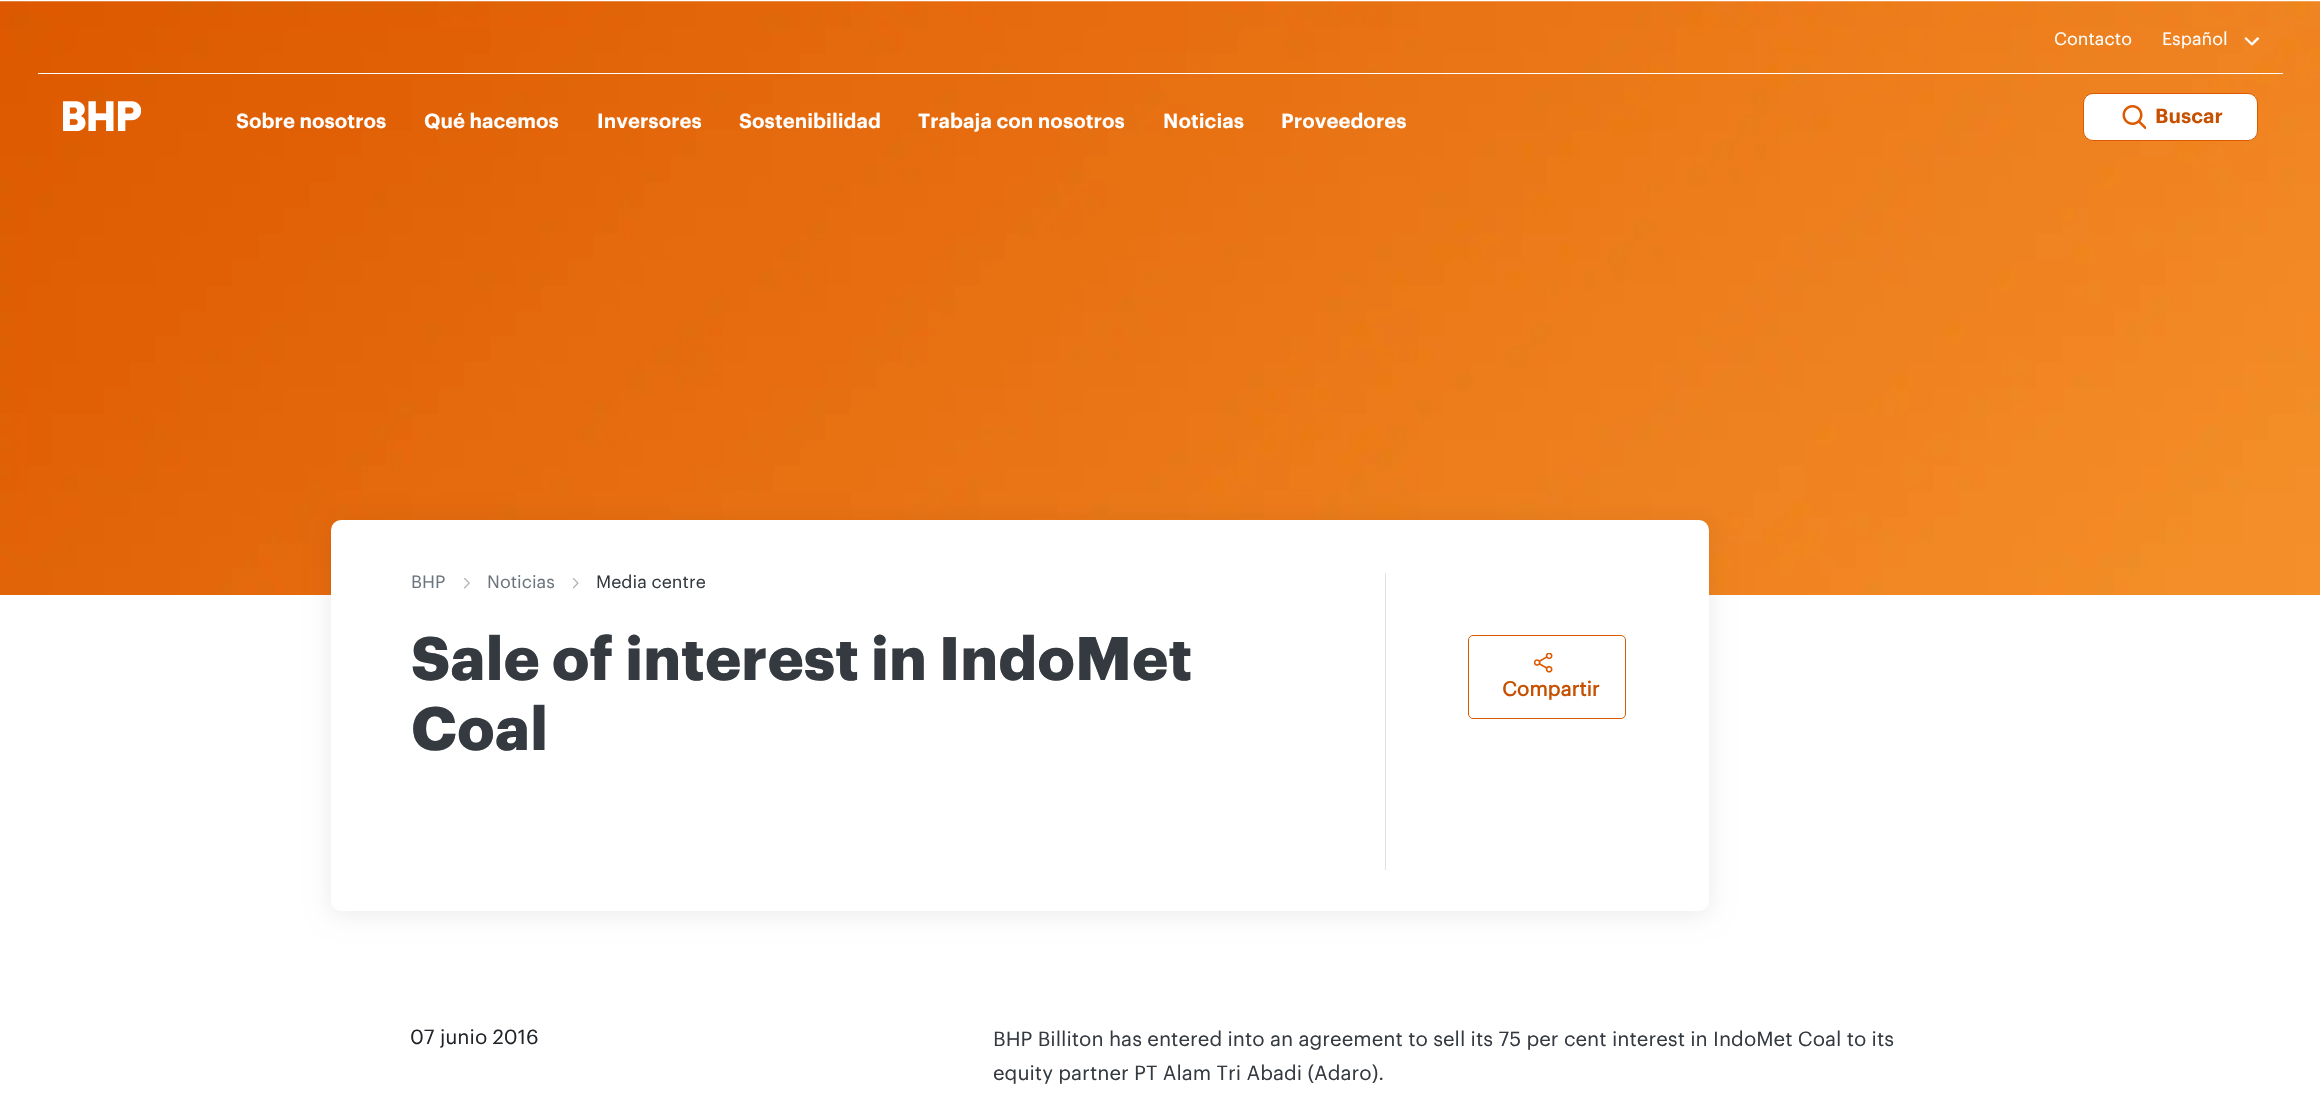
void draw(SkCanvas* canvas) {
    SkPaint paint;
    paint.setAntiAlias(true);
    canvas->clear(0xFFFFFFFF);
    canvas->drawImageRect(SkImages::DeferredFromEncodedData(SkData::MakeFromFileName("img3.png")), SkRect::MakeXYWH(0, 1, 2320, 594), SkSamplingOptions());
    SkFont font1(fontMgr->matchFamilyStyle("Graphik", SkFontStyle::Normal()), 17.5f);
    font1.setSubpixel(true);
    paint.setColor(0xFFFFFFFF);
    canvas->drawString("Contacto", 2054, 45, font1, paint);
    canvas->drawString("Español", 2162, 45, font1, paint);
    canvas->drawPath(SkPathBuilder().moveTo(2244.5f, 38.5f).lineTo(2246, 37).lineTo(2253, 44).lineTo(2251.5f, 45.5f).close().detach(), paint);
    canvas->drawPath(SkPathBuilder().moveTo(2257.5f, 37).lineTo(2259.5f, 38.5f).lineTo(2252.5f, 45.5f).lineTo(2250.5f, 44).close().detach(), paint);
    canvas->drawRect(SkRect::MakeXYWH(38, 73, 2245, 1), paint);
    canvas->drawImageRect(SkImages::DeferredFromEncodedData(SkData::MakeFromFileName("img1.png")), SkRect::MakeXYWH(63, 101, 78, 30), SkSamplingOptions());
    SkFont font2(fontMgr->matchFamilyStyle("Graphik", SkFontStyle(600, SkFontStyle::kNormal_Width, SkFontStyle::kUpright_Slant)), 20);
    font2.setSubpixel(true);
    canvas->drawString("Sobre nosotros", 236, 128, font2, paint);
    canvas->drawString("Qué hacemos", 424, 128, font2, paint);
    canvas->drawString("Inversores", 597, 128, font2, paint);
    canvas->drawString("Sostenibilidad", 739, 128, font2, paint);
    canvas->drawString("Trabaja con nosotros", 918, 128, font2, paint);
    canvas->drawString("Noticias", 1163, 128, font2, paint);
    canvas->drawString("Proveedores", 1281, 128, font2, paint);
    canvas->drawRoundRect(SkRect::MakeXYWH(2083.5f, 93.5f, 174, 47), 9.5f, 9.5f, paint);
    paint.setStyle(SkPaint::kStroke_Style);
    paint.setStrokeWidth(1);
    paint.setColor(0xFFDD5900);
    canvas->drawRoundRect(SkRect::MakeXYWH(2083.5f, 93.5f, 174, 47), 9.5f, 9.5f, paint);
    canvas->drawImageRect(SkImages::DeferredFromEncodedData(SkData::MakeFromFileName("img2.png")), SkRect::MakeXYWH(2122, 105, 24, 24), SkSamplingOptions());
    paint.setStyle(SkPaint::kFill_Style);
    paint.setColor(0xFFC75000);
    canvas->drawString("Buscar", 2155, 123, font2, paint);
    paint.setColor(0x14000000);
    paint.setMaskFilter(SkMaskFilter::MakeBlur(kNormal_SkBlurStyle, 12.5f));
    canvas->drawRoundRect(SkRect::MakeXYWH(331, 523, 1378, 391), 10, 10, paint);
    paint.setMaskFilter(nullptr);
    paint.setColor(0xFFFFFFFF);
    canvas->drawRoundRect(SkRect::MakeXYWH(331, 520, 1378, 391), 10, 10, paint);
    paint.setColor(0xFF6C757D);
    canvas->drawString("BHP", 411, 588, font1, paint);
    canvas->drawImageRect(SkImages::DeferredFromEncodedData(SkData::MakeFromFileName("img4.png")), SkRect::MakeXYWH(464, 578, 6, 11), SkSamplingOptions());
    canvas->drawString("Noticias", 487, 588, font1, paint);
    canvas->drawImageRect(SkImages::DeferredFromEncodedData(SkData::MakeFromFileName("img5.png")), SkRect::MakeXYWH(573, 578, 6, 11), SkSamplingOptions());
    paint.setColor(0xFF343A40);
    canvas->drawString("Media centre", 596, 588, font1, paint);
    SkFont font3(fontMgr->matchFamilyStyle("Graphik", SkFontStyle::Bold()), 60);
    font3.setSubpixel(true);
    canvas->drawString("Sale of interest in IndoMet", 411, 680, font3, paint);
    canvas->drawString("Coal", 411, 750, font3, paint);
    paint.setColor(0xFFDEE2E6);
    canvas->drawRect(SkRect::MakeXYWH(1385, 573, 1, 297), paint);
    paint.setStyle(SkPaint::kStroke_Style);
    paint.setColor(0xFFDD5900);
    canvas->drawRoundRect(SkRect::MakeXYWH(1468.5f, 635.5f, 157, 83), 4.5f, 4.5f, paint);
    canvas->drawImageRect(SkImages::DeferredFromEncodedData(SkData::MakeFromFileName("img6.png")), SkRect::MakeXYWH(1534, 653, 19, 20), SkSamplingOptions());
    SkFont font4(fontMgr->matchFamilyStyle("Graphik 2", SkFontStyle::Bold()), 20);
    font4.setSubpixel(true);
    paint.setStyle(SkPaint::kFill_Style);
    paint.setColor(0xFFC75000);
    canvas->drawString("Compartir", 1502, 696, font4, paint);
    SkFont font5(fontMgr->matchFamilyStyle("Graphik", SkFontStyle::Normal()), 20);
    font5.setSubpixel(true);
    paint.setColor(0xFF212529);
    canvas->drawString("07 junio 2016", 410, 1044, font5, paint);
    paint.setColor(0xFF343A40);
    canvas->drawString("BHP Billiton has entered into an agreement to sell its 75 per cent interest in IndoMet Coal to its", 993, 1046, font5, paint);
    canvas->drawString("equity partner PT Alam Tri Abadi (Adaro).", 993, 1080, font5, paint);
}
